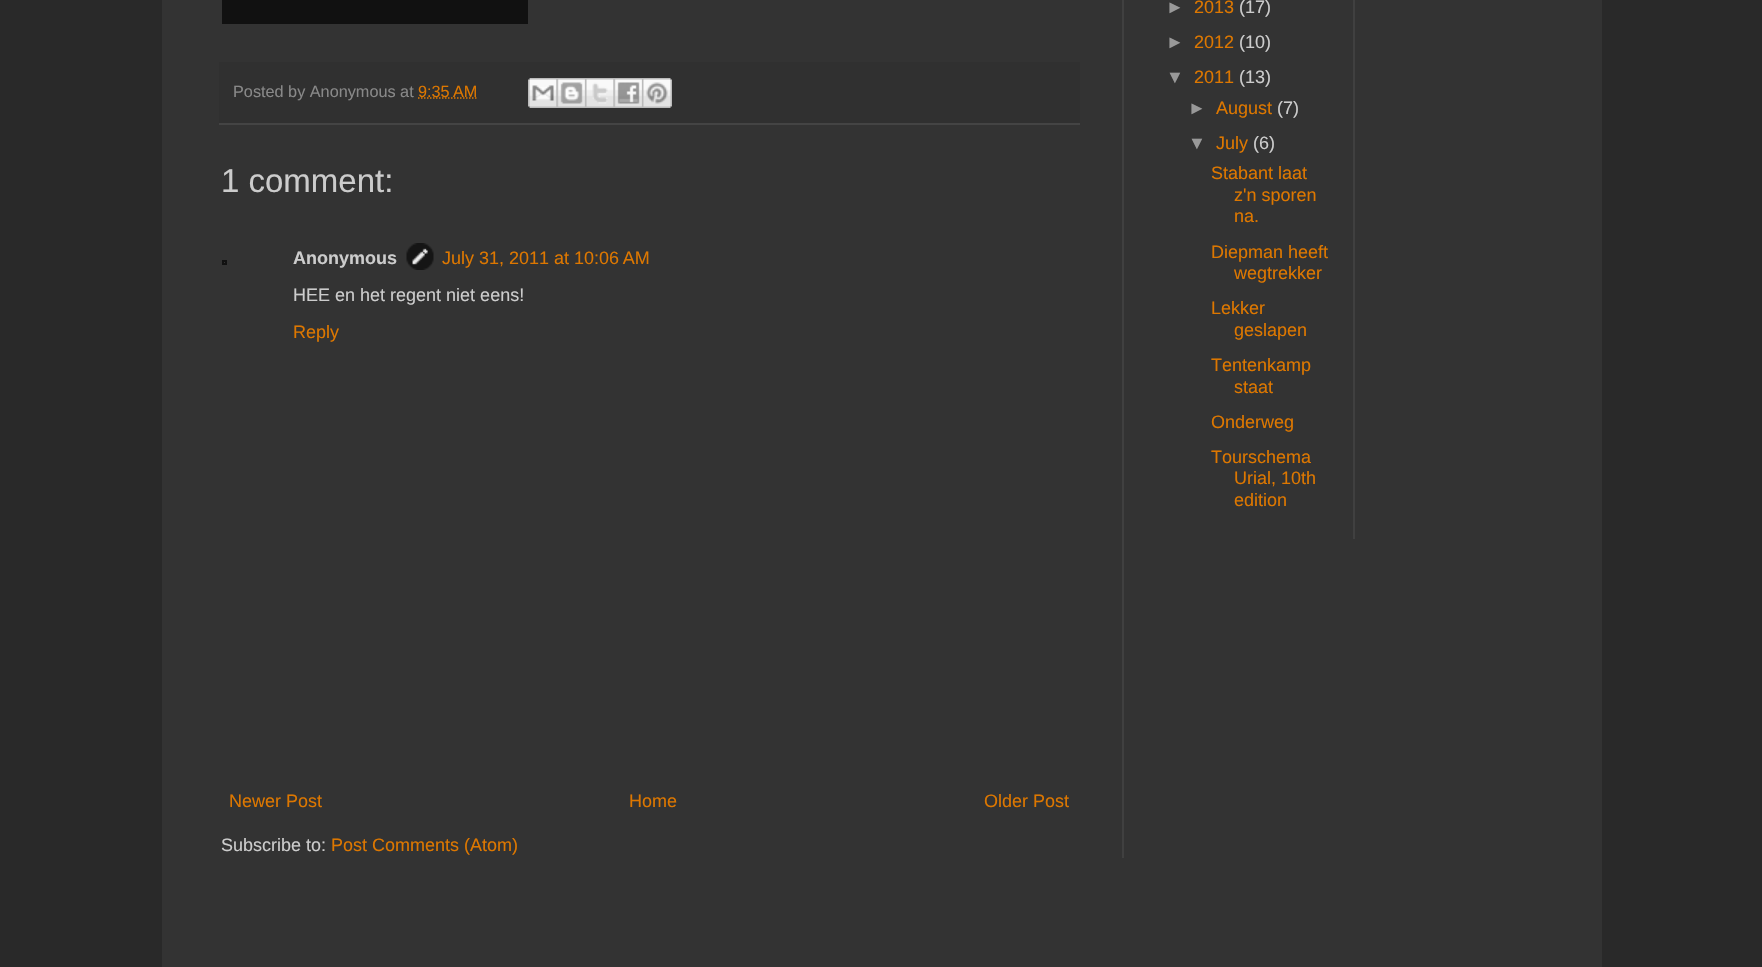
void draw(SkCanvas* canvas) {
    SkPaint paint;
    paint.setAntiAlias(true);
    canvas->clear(0xFF292929);
    paint.setColor(0xFF333333);
    canvas->drawRect(SkRect::MakeXYWH(162, 0, 1440, 967), paint);
    paint.setColor(0xFF111111);
    canvas->drawRect(SkRect::MakeXYWH(222, 0, 306, 24), paint);
    paint.setColor(0xFF303030);
    canvas->drawRect(SkRect::MakeXYWH(219, 62, 861, 61), paint);
    paint.setColor(0xFF444444);
    canvas->drawRect(SkRect::MakeXYWH(219, 123, 861, 2), paint);
    SkFont font1(fontMgr->matchFamilyStyle("Liberation Sans", SkFontStyle::Normal()), 16.25f);
    font1.setSubpixel(true);
    paint.setColor(0xFF888888);
    canvas->drawString("Posted by Anonymous at", 233, 97, font1, paint);
    paint.setStyle(SkPaint::kStroke_Style);
    paint.setStrokeWidth(1.5f);
    paint.setColor(0xFFDD7700);
    paint.setPathEffect(SkDashPathEffect::Make({{1.5f, 1.5f}}, 0));
    canvas->drawPath(SkPathBuilder().moveTo(418, 98).lineTo(477, 98).detach(), paint);
    paint.setPathEffect(nullptr);
    paint.setStyle(SkPaint::kFill_Style);
    canvas->drawString("9:35 AM", 418, 97, font1, paint);
    canvas->drawImageRect(SkImages::DeferredFromEncodedData(SkData::MakeFromFileName("img1.png")), SkRect::MakeXYWH(528, 78, 29, 30), SkSamplingOptions());
    canvas->drawImageRect(SkImages::DeferredFromEncodedData(SkData::MakeFromFileName("img2.png")), SkRect::MakeXYWH(556, 78, 29, 30), SkSamplingOptions());
    canvas->drawImageRect(SkImages::DeferredFromEncodedData(SkData::MakeFromFileName("img3.png")), SkRect::MakeXYWH(585, 78, 29, 30), SkSamplingOptions());
    canvas->drawImageRect(SkImages::DeferredFromEncodedData(SkData::MakeFromFileName("img4.png")), SkRect::MakeXYWH(613, 78, 29, 30), SkSamplingOptions());
    canvas->drawImageRect(SkImages::DeferredFromEncodedData(SkData::MakeFromFileName("img5.png")), SkRect::MakeXYWH(642, 78, 30, 30), SkSamplingOptions());
    SkFont font2(fontMgr->matchFamilyStyle("Liberation Sans", SkFontStyle::Normal()), 33);
    font2.setSubpixel(true);
    paint.setColor(0xFFCCCCCC);
    canvas->drawString("1 comment:", 221, 192, font2, paint);
    paint.setStyle(SkPaint::kStroke_Style);
    paint.setStrokeWidth(2);
    paint.setColor(0xFF111111);
    canvas->drawRect(SkRect::MakeXYWH(223, 261, 3, 3), paint);
    SkFont font3(fontMgr->matchFamilyStyle("Liberation Sans", SkFontStyle::Bold()), 18);
    font3.setSubpixel(true);
    paint.setStyle(SkPaint::kFill_Style);
    paint.setColor(0xFFCCCCCC);
    canvas->drawString("Anonymous", 293, 264, font3, paint);
    canvas->drawImageRect(SkImages::DeferredFromEncodedData(SkData::MakeFromFileName("img6.png")), SkRect::MakeXYWH(406, 243, 28, 27), SkSamplingOptions());
    SkFont font4(fontMgr->matchFamilyStyle("Liberation Sans", SkFontStyle::Normal()), 18);
    font4.setSubpixel(true);
    paint.setColor(0xFFDD7700);
    canvas->drawString("July 31, 2011 at 10:06 AM", 442, 264, font4, paint);
    paint.setColor(0xFFCCCCCC);
    canvas->drawString("HEE en het regent niet eens!", 293, 301, font4, paint);
    paint.setColor(0xFFDD7700);
    canvas->drawString("Reply", 293, 338, font4, paint);
    canvas->drawString("Newer Post", 229, 807, font4, paint);
    canvas->drawString("Home", 629, 807, font4, paint);
    canvas->drawString("Older Post", 984, 807, font4, paint);
    paint.setColor(0xFFCCCCCC);
    canvas->drawString("Subscribe to:", 221, 851, font4, paint);
    paint.setColor(0xFFDD7700);
    canvas->drawString("Post Comments (Atom)", 331, 851, font4, paint);
    paint.setColor(0xFF999999);
    canvas->drawString("►", 1166, 13, font4, paint);
    paint.setColor(0xFFDD7700);
    canvas->drawString("2013", 1194, 13, font4, paint);
    paint.setColor(0xFFCCCCCC);
    canvas->drawString("(17)", 1239, 13, font4, paint);
    paint.setColor(0xFF999999);
    canvas->drawString("►", 1166, 48, font4, paint);
    paint.setColor(0xFFDD7700);
    canvas->drawString("2012", 1194, 48, font4, paint);
    paint.setColor(0xFFCCCCCC);
    canvas->drawString("(10)", 1239, 48, font4, paint);
    paint.setColor(0xFF999999);
    canvas->drawString("▼", 1166, 83, font4, paint);
    paint.setColor(0xFFDD7700);
    canvas->drawString("2011", 1194, 83, font4, paint);
    paint.setColor(0xFFCCCCCC);
    canvas->drawString("(13)", 1239, 83, font4, paint);
    paint.setColor(0xFF999999);
    canvas->drawString("►", 1188, 114, font4, paint);
    paint.setColor(0xFFDD7700);
    canvas->drawString("August", 1216, 114, font4, paint);
    paint.setColor(0xFFCCCCCC);
    canvas->drawString("(7)", 1277, 114, font4, paint);
    paint.setColor(0xFF999999);
    canvas->drawString("▼", 1188, 149, font4, paint);
    paint.setColor(0xFFDD7700);
    canvas->drawString("July", 1216, 149, font4, paint);
    paint.setColor(0xFFCCCCCC);
    canvas->drawString("(6)", 1253, 149, font4, paint);
    paint.setColor(0xFFDD7700);
    canvas->drawString("Stabant laat", 1211, 179, font4, paint);
    canvas->drawString("z'n sporen", 1234, 201, font4, paint);
    canvas->drawString("na.", 1234, 222, font4, paint);
    canvas->drawString("Diepman heeft", 1211, 258, font4, paint);
    canvas->drawString("wegtrekker", 1234, 279, font4, paint);
    canvas->drawString("Lekker", 1211, 314, font4, paint);
    canvas->drawString("geslapen", 1234, 336, font4, paint);
    canvas->drawString("Tentenkamp", 1211, 371, font4, paint);
    canvas->drawString("staat", 1234, 393, font4, paint);
    canvas->drawString("Onderweg", 1211, 428, font4, paint);
    canvas->drawString("Tourschema", 1211, 463, font4, paint);
    canvas->drawString("Urial, 10th", 1234, 484, font4, paint);
    canvas->drawString("edition", 1234, 506, font4, paint);
    paint.setColor(0xFF404040);
    canvas->drawRect(SkRect::MakeXYWH(1353, 0, 2, 539), paint);
    canvas->drawRect(SkRect::MakeXYWH(1122, 0, 2, 858), paint);
}
